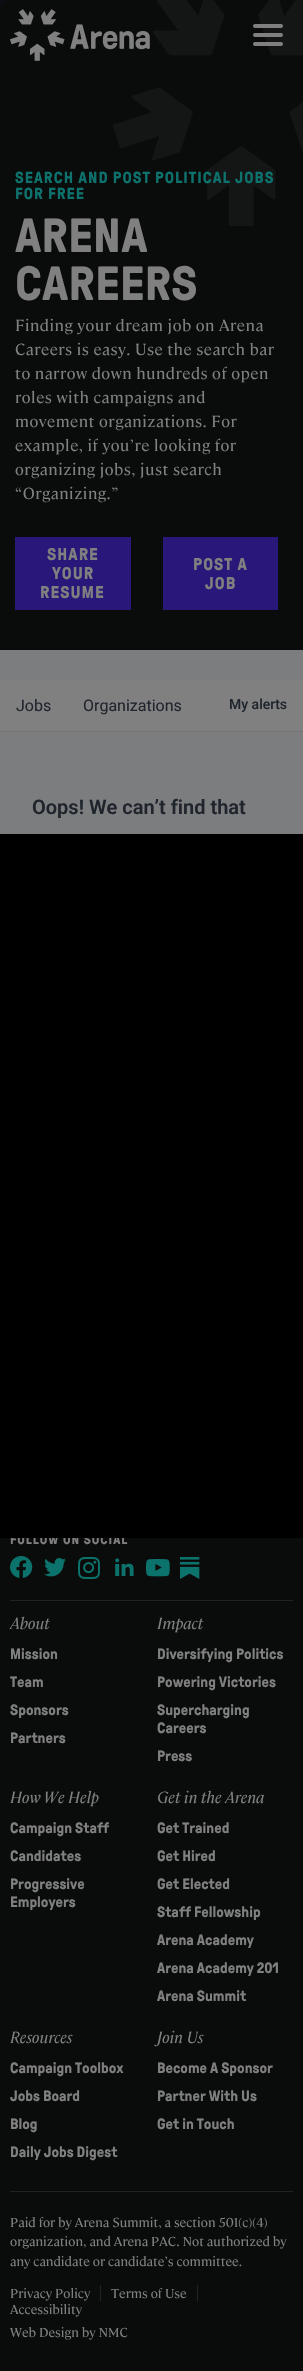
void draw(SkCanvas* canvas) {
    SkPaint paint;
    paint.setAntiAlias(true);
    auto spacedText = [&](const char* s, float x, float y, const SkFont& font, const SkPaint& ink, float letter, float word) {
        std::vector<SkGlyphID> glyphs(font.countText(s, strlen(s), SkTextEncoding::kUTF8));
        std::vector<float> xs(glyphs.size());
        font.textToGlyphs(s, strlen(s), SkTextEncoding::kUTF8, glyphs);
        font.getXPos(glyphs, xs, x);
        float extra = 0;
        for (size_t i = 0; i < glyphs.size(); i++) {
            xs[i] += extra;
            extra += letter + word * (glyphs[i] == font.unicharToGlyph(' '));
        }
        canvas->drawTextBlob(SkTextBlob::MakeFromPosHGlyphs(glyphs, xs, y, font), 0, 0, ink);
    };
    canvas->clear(0xFF7C7D7E);
    paint.setColor(0xFF0A0B0B);
    canvas->drawRect(SkRect::MakeXYWH(0, 0, 303, 650), paint);
    canvas->drawImageRect(SkImages::DeferredFromEncodedData(SkData::MakeFromFileName("img2.png")), SkRect::MakeXYWH(113, 0, 190, 226), SkSamplingOptions());
    canvas->drawImageRect(SkImages::DeferredFromEncodedData(SkData::MakeFromFileName("img1.png")), SkRect::MakeXYWH(10, 9, 140, 52), SkSamplingOptions());
    paint.setColor(0xFF532EF4);
    paint.setMaskFilter(SkMaskFilter::MakeBlur(kNormal_SkBlurStyle, 5));
    canvas->drawRect(SkRect::MakeXYWH(-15, -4, 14, 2), paint);
    paint.setMaskFilter(nullptr);
    paint.setColor(0xFF808080);
    canvas->drawRoundRect(SkRect::MakeXYWH(253, 24, 30, 4), 2, 2, paint);
    canvas->drawRoundRect(SkRect::MakeXYWH(253, 33, 30, 4), 2, 2, paint);
    canvas->drawRoundRect(SkRect::MakeXYWH(253, 42, 30, 4), 2, 2, paint);
    SkFont font1(fontMgr->matchFamilyStyle("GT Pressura", SkFontStyle::Bold()), 16);
    font1.setSubpixel(true);
    paint.setColor(0xFF0D726D);
    spacedText("SEARCH AND POST POLITICAL JOBS", 15, 183, font1, paint, 1, 0);
    spacedText("FOR FREE", 15, 199, font1, paint, 1, 0);
    SkFont font2(fontMgr->matchFamilyStyle("GT Pressura", SkFontStyle::Bold()), 48);
    font2.setSubpixel(true);
    paint.setColor(0xFF808080);
    canvas->drawString("ARENA", 15, 252, font2, paint);
    canvas->drawString("CAREERS", 15, 300, font2, paint);
    SkFont font3(fontMgr->matchFamilyStyle("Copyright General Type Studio", SkFontStyle::Normal()), 16);
    font3.setSubpixel(true);
    spacedText("Finding your dream job on Arena", 15, 331, font3, paint, 0.5f, 0);
    spacedText("Careers is easy. Use the search bar", 15, 355, font3, paint, 0.5f, 0);
    spacedText("to narrow down hundreds of open", 15, 379, font3, paint, 0.5f, 0);
    spacedText("roles with campaigns and", 15, 403, font3, paint, 0.5f, 0);
    spacedText("movement organizations. For", 15, 427, font3, paint, 0.5f, 0);
    spacedText("example, if you’re looking for", 15, 451, font3, paint, 0.5f, 0);
    spacedText("organizing jobs, just search", 15, 475, font3, paint, 0.5f, 0);
    spacedText("“Organizing.”", 15, 499, font3, paint, 0.5f, 0);
    paint.setColor(0xFF29187A);
    canvas->drawRect(SkRect::MakeXYWH(15, 537, 116, 73), paint);
    SkFont font4(fontMgr->matchFamilyStyle("GT Pressura", SkFontStyle::Bold()), 17);
    font4.setSubpixel(true);
    paint.setColor(0xFF808080);
    spacedText("SHARE", 47, 560, font4, paint, 1, 0);
    spacedText("YOUR", 52, 579, font4, paint, 1, 0);
    spacedText("RESUME", 40, 598, font4, paint, 1, 0);
    paint.setColor(0xFF29187A);
    canvas->drawRect(SkRect::MakeXYWH(163, 537, 115, 73), paint);
    paint.setColor(0xFF808080);
    spacedText("POST A", 193, 570, font4, paint, 1, 0);
    spacedText("JOB", 205, 589, font4, paint, 1, 0);
    paint.setColor(0xFF737373);
    canvas->drawRect(SkRect::MakeXYWH(0, 731, 303, 1), paint);
    paint.setColor(0xFF808080);
    canvas->drawRect(SkRect::MakeXYWH(0, 680, 303, 51), paint);
    SkFont font5(fontMgr->matchFamilyStyle("Roboto", SkFontStyle::Normal()), 16);
    font5.setSubpixel(true);
    paint.setColor(0xFF20252D);
    canvas->drawString("Jobs", 16, 711, font5, paint);
    canvas->drawString("Organizations", 83, 711, font5, paint);
    SkFont font6(fontMgr->matchFamilyStyle("Roboto", SkFontStyle(500, SkFontStyle::kNormal_Width, SkFontStyle::kUpright_Slant)), 14);
    font6.setSubpixel(true);
    canvas->drawString("My alerts", 229, 709, font6, paint);
    SkFont font7(fontMgr->matchFamilyStyle("Roboto", SkFontStyle(600, SkFontStyle::kNormal_Width, SkFontStyle::kUpright_Slant)), 20);
    font7.setSubpixel(true);
    canvas->drawString("Oops! We can’t find that", 32, 814, font7, paint);
    paint.setColor(0xFF0A0B0B);
    canvas->drawRect(SkRect::MakeXYWH(0, 1538, 303, 833), paint);
    SkFont font8(fontMgr->matchFamilyStyle("GT Pressura", SkFontStyle::Bold()), 13);
    font8.setSubpixel(true);
    paint.setColor(0xFF808080);
    spacedText("FOLLOW ON SOCIAL", 10, 1544, font8, paint, 1, 0);
    canvas->drawImageRect(SkImages::DeferredFromEncodedData(SkData::MakeFromFileName("img3.png")), SkRect::MakeXYWH(10, 1556, 23, 22), SkSamplingOptions());
    canvas->drawImageRect(SkImages::DeferredFromEncodedData(SkData::MakeFromFileName("img4.png")), SkRect::MakeXYWH(44, 1558, 22, 19), SkSamplingOptions());
    canvas->drawImageRect(SkImages::DeferredFromEncodedData(SkData::MakeFromFileName("img5.png")), SkRect::MakeXYWH(78, 1557, 22, 22), SkSamplingOptions());
    canvas->drawImageRect(SkImages::DeferredFromEncodedData(SkData::MakeFromFileName("img6.png")), SkRect::MakeXYWH(115, 1558, 19, 18), SkSamplingOptions());
    canvas->drawImageRect(SkImages::DeferredFromEncodedData(SkData::MakeFromFileName("img7.png")), SkRect::MakeXYWH(146, 1559, 24, 18), SkSamplingOptions());
    canvas->drawImageRect(SkImages::DeferredFromEncodedData(SkData::MakeFromFileName("img8.png")), SkRect::MakeXYWH(180, 1557, 20, 22), SkSamplingOptions());
    paint.setColor(0xFF222223);
    canvas->drawRect(SkRect::MakeXYWH(10, 1600, 283, 1), paint);
    SkFont font9(fontMgr->matchFamilyStyle("Copyright General Type Studio", SkFontStyle::Italic()), 16);
    font9.setSubpixel(true);
    paint.setColor(0xFF808080);
    canvas->drawString("About", 10, 1629, font9, paint);
    SkFont font10(fontMgr->matchFamilyStyle("GT Pressura", SkFontStyle::Bold()), 15);
    font10.setSubpixel(true);
    canvas->drawString("Mission", 10, 1659, font10, paint);
    canvas->drawString("Team", 10, 1687, font10, paint);
    canvas->drawString("Sponsors", 10, 1715, font10, paint);
    canvas->drawString("Partners", 10, 1743, font10, paint);
    canvas->drawString("Impact", 157, 1629, font9, paint);
    canvas->drawString("Diversifying Politics", 157, 1659, font10, paint);
    canvas->drawString("Powering Victories", 157, 1687, font10, paint);
    canvas->drawString("Supercharging", 157, 1715, font10, paint);
    canvas->drawString("Careers", 157, 1733, font10, paint);
    canvas->drawString("Press", 157, 1761, font10, paint);
    canvas->drawString("How We Help", 10, 1803, font9, paint);
    canvas->drawString("Campaign Staff", 10, 1833, font10, paint);
    canvas->drawString("Candidates", 10, 1861, font10, paint);
    canvas->drawString("Progressive", 10, 1889, font10, paint);
    canvas->drawString("Employers", 10, 1907, font10, paint);
    canvas->drawString("Get in the Arena", 157, 1803, font9, paint);
    canvas->drawString("Get Trained", 157, 1833, font10, paint);
    canvas->drawString("Get Hired", 157, 1861, font10, paint);
    canvas->drawString("Get Elected", 157, 1889, font10, paint);
    canvas->drawString("Staff Fellowship", 157, 1917, font10, paint);
    canvas->drawString("Arena Academy", 157, 1945, font10, paint);
    canvas->drawString("Arena Academy 201", 157, 1973, font10, paint);
    canvas->drawString("Arena Summit", 157, 2001, font10, paint);
    canvas->drawString("Resources", 10, 2043, font9, paint);
    canvas->drawString("Campaign Toolbox", 10, 2073, font10, paint);
    canvas->drawString("Jobs Board", 10, 2101, font10, paint);
    canvas->drawString("Blog", 10, 2129, font10, paint);
    canvas->drawString("Daily Jobs Digest", 10, 2157, font10, paint);
    canvas->drawString("Join Us", 157, 2043, font9, paint);
    canvas->drawString("Become A Sponsor", 157, 2073, font10, paint);
    canvas->drawString("Partner With Us", 157, 2101, font10, paint);
    canvas->drawString("Get in Touch", 157, 2129, font10, paint);
    paint.setColor(0xFF222223);
    canvas->drawRect(SkRect::MakeXYWH(10, 2191, 283, 1), paint);
    SkFont font11(fontMgr->matchFamilyStyle("Copyright General Type Studio", SkFontStyle::Normal()), 13);
    font11.setSubpixel(true);
    paint.setColor(0xFF808080);
    canvas->drawString("Paid for by Arena Summit, a section 501(c)(4)", 10, 2227, font11, paint);
    canvas->drawString("organization, and Arena PAC. Not authorized by", 10, 2246, font11, paint);
    canvas->drawString("any candidate or candidate’s committee.", 10, 2266, font11, paint);
    paint.setColor(0xFF222223);
    canvas->drawRect(SkRect::MakeXYWH(100, 2285, 1, 16), paint);
    paint.setColor(0xFF808080);
    canvas->drawString("Privacy Policy", 10, 2298, font11, paint);
    paint.setColor(0xFF222223);
    canvas->drawRect(SkRect::MakeXYWH(197, 2285, 1, 16), paint);
    paint.setColor(0xFF808080);
    canvas->drawString("Terms of Use", 111, 2298, font11, paint);
    canvas->drawString("Accessibility", 10, 2314, font11, paint);
    canvas->drawString("Web Design by NMC", 10, 2337, font11, paint);
    paint.setColor(0xFF000000);
    canvas->drawRect(SkRect::MakeXYWH(0, 834, 303, 704), paint);
}
